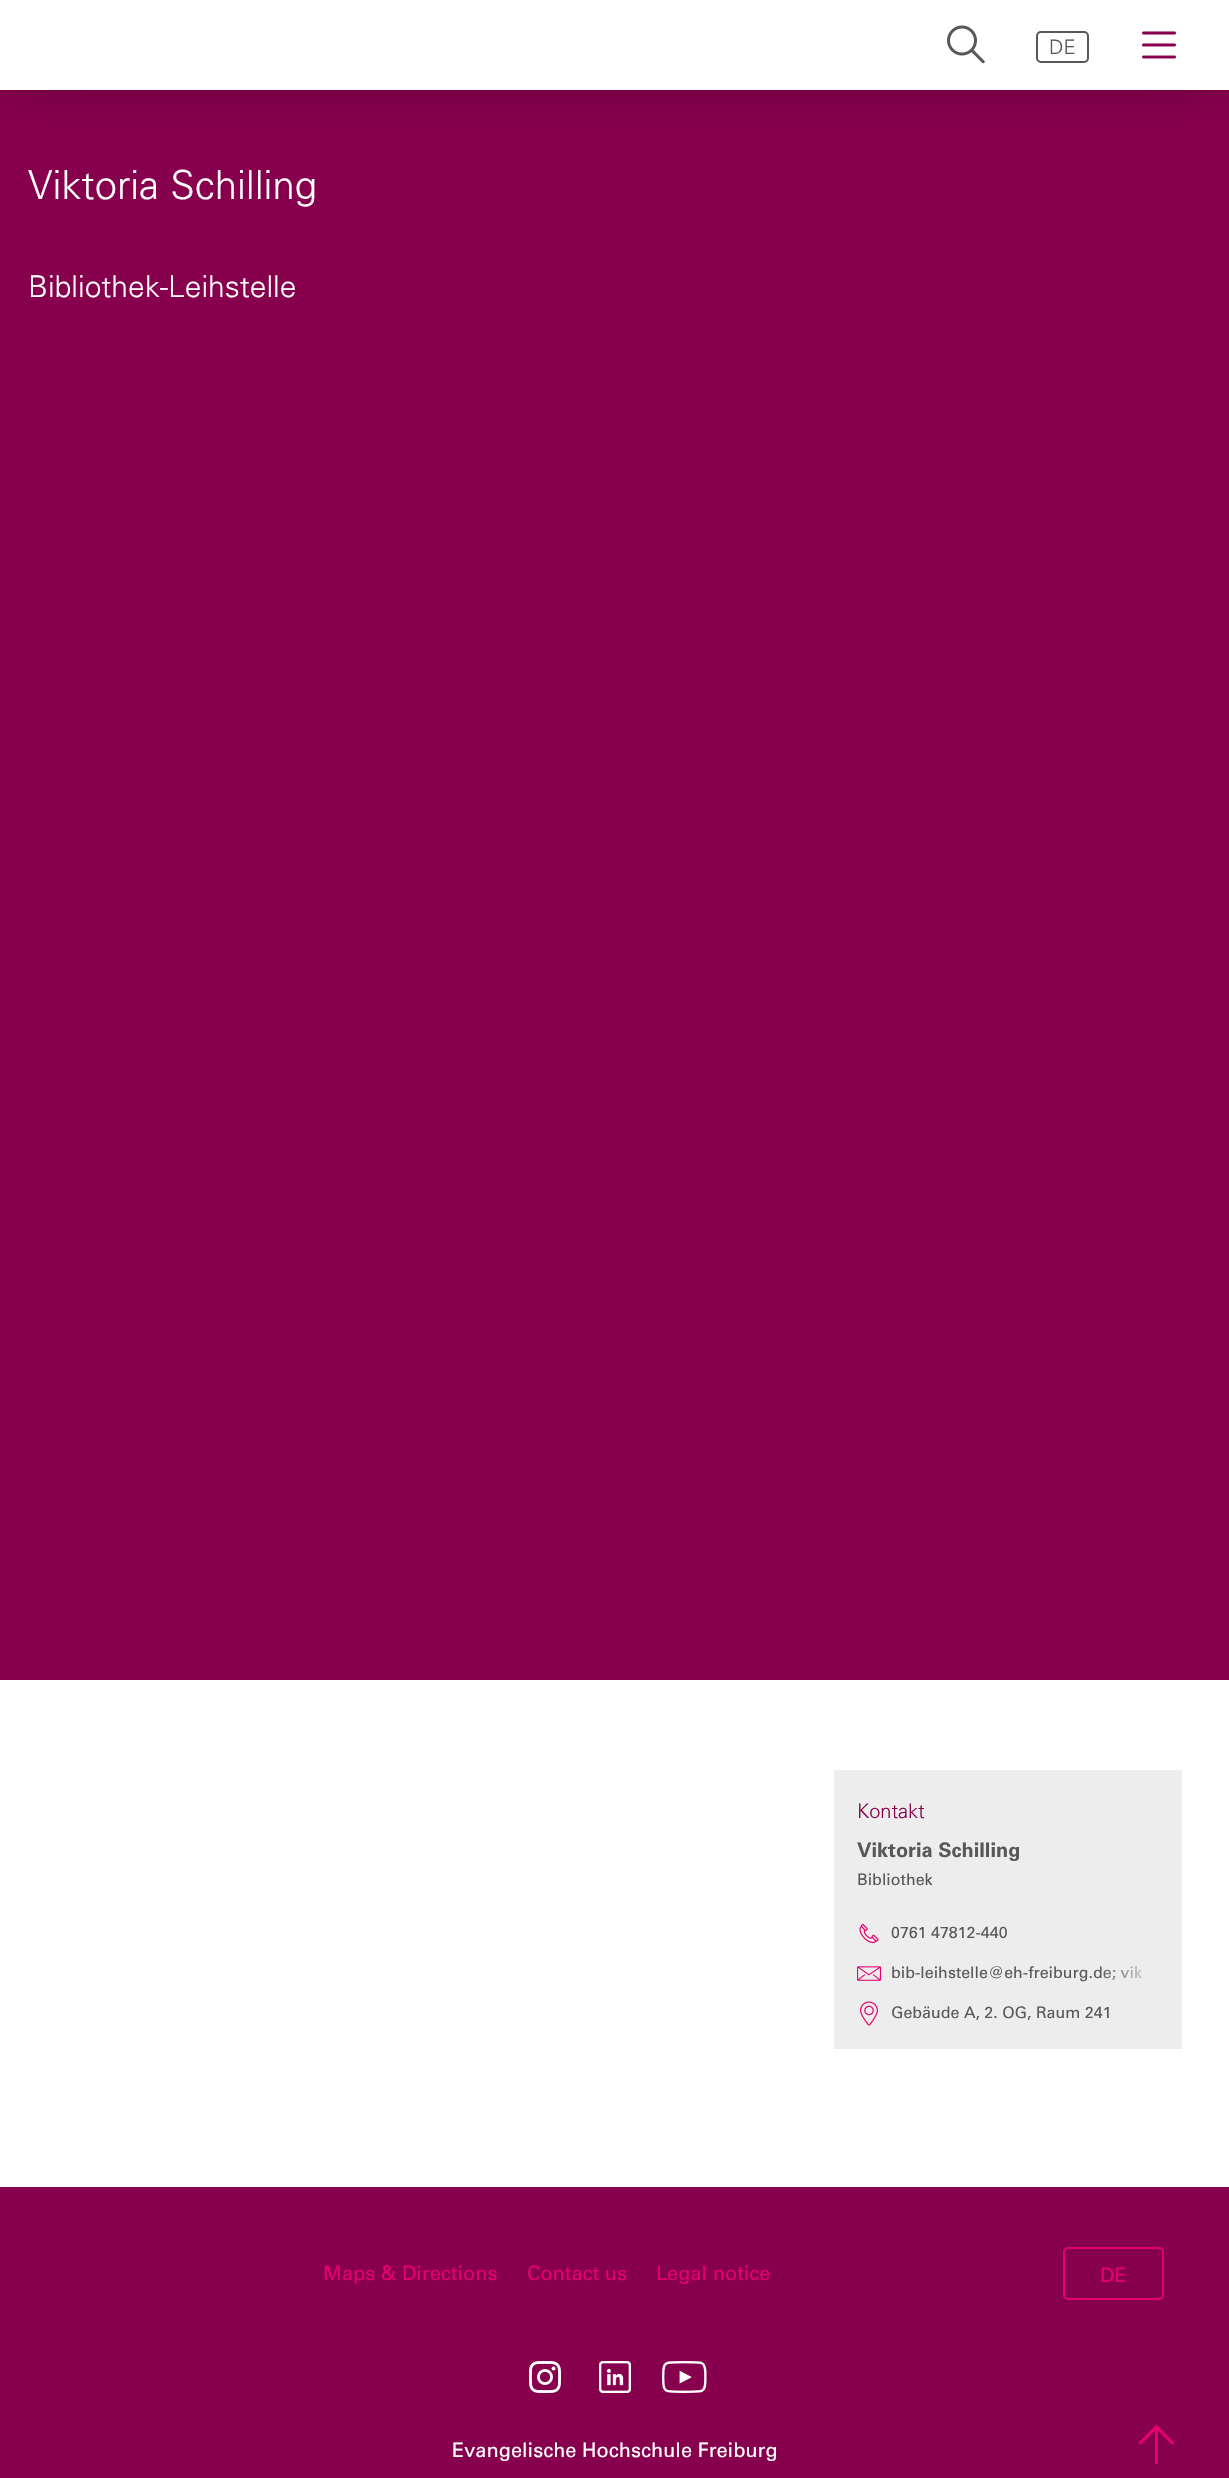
void draw(SkCanvas* canvas) {
    SkPaint paint;
    paint.setAntiAlias(true);
    canvas->clear(0xFFFFFFFF);
    paint.setColor(0xFF87004E);
    canvas->drawRect(SkRect::MakeXYWH(0, 90, 1229, 1590), paint);
    canvas->save();
    canvas->clipRect(SkRect::MakeXYWH(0, 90, 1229, 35));
    paint.setColor(0x4D000000);
    paint.setMaskFilter(SkMaskFilter::MakeBlur(kNormal_SkBlurStyle, 30));
    canvas->drawRect(SkRect::MakeXYWH(0, -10, 1229, 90), paint);
    paint.setMaskFilter(nullptr);
    canvas->restore();
    canvas->drawImageRect(SkImages::DeferredFromEncodedData(SkData::MakeFromFileName("img1.png")), SkRect::MakeXYWH(947, 25, 38, 39), SkSamplingOptions());
    paint.setStyle(SkPaint::kStroke_Style);
    paint.setStrokeWidth(2);
    paint.setColor(0xFF595757);
    canvas->drawRoundRect(SkRect::MakeXYWH(1037, 32, 51, 30), 4, 4, paint);
    SkFont font1(fontMgr->matchFamilyStyle("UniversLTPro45", SkFontStyle::Normal()), 20);
    font1.setSubpixel(true);
    paint.setStyle(SkPaint::kFill_Style);
    canvas->drawString("DE", 1049, 54, font1, paint);
    canvas->drawImageRect(SkImages::DeferredFromEncodedData(SkData::MakeFromFileName("img2.png")), SkRect::MakeXYWH(1142, 31, 34, 28), SkSamplingOptions());
    SkFont font2(fontMgr->matchFamilyStyle("UniversLTPro45", SkFontStyle::Normal()), 40);
    font2.setSubpixel(true);
    paint.setColor(0xFFFFFFFF);
    canvas->drawString("Viktoria Schilling", 28, 199, font2, paint);
    SkFont font3(fontMgr->matchFamilyStyle("UniversLTPro45", SkFontStyle::Normal()), 30);
    font3.setSubpixel(true);
    canvas->drawString("Bibliothek-Leihstelle", 28, 297, font3, paint);
    paint.setColor(0xFFEDEDED);
    canvas->drawRect(SkRect::MakeXYWH(834, 1770, 348, 279), paint);
    paint.setColor(0xFF87004E);
    canvas->drawString("Kontakt", 857, 1818, font1, paint);
    SkFont font4(fontMgr->matchFamilyStyle("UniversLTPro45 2", SkFontStyle::Normal()), 20);
    font4.setSubpixel(true);
    paint.setColor(0xFF595757);
    canvas->drawString("Viktoria Schilling", 857, 1857, font4, paint);
    SkFont font5(fontMgr->matchFamilyStyle("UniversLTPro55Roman", SkFontStyle::Normal()), 16);
    font5.setSubpixel(true);
    canvas->drawString("Bibliothek", 857, 1885, font5, paint);
    canvas->drawImageRect(SkImages::DeferredFromEncodedData(SkData::MakeFromFileName("img3.png")), SkRect::MakeXYWH(859, 1923, 20, 21), SkSamplingOptions());
    canvas->drawString("0761 47812-440", 891, 1938, font5, paint);
    canvas->drawImageRect(SkImages::DeferredFromEncodedData(SkData::MakeFromFileName("img4.png")), SkRect::MakeXYWH(857, 1966, 24, 15), SkSamplingOptions());
    canvas->drawString("bib-leihstelle@eh-freiburg.de; vik", 891, 1978, font5, paint);
    {
        const SkColor colors[] = {0x00EDEDED, 0xFFEDEDED};
        const float stops[] = {0, 1};
        const SkPoint ends[] = {{1099, 1974}, {1159, 1974}};
        paint.setShader(SkGradientShader::MakeLinear(ends, colors, stops, 2, SkTileMode::kClamp));
        paint.setAlpha(255);
    }
    canvas->drawRect(SkRect::MakeXYWH(1100, 1966, 42, 14), paint);
    canvas->drawImageRect(SkImages::DeferredFromEncodedData(SkData::MakeFromFileName("img5.png")), SkRect::MakeXYWH(860, 2001, 18, 25), SkSamplingOptions());
    paint.setShader(nullptr);
    paint.setColor(0xFF595757);
    canvas->drawString("Gebäude A, 2. OG, Raum 241", 891, 2018, font5, paint);
    paint.setColor(0xFF87004E);
    canvas->drawRect(SkRect::MakeXYWH(0, 2187, 1229, 291), paint);
    SkFont font6(fontMgr->matchFamilyStyle("UniversLTPro55Roman", SkFontStyle::Normal()), 20);
    font6.setSubpixel(true);
    paint.setColor(0xFFE5006D);
    canvas->drawString("Maps & Directions", 323, 2280, font6, paint);
    canvas->drawString("Contact us", 527, 2280, font6, paint);
    canvas->drawString("Legal notice", 656, 2280, font6, paint);
    paint.setStyle(SkPaint::kStroke_Style);
    canvas->drawRoundRect(SkRect::MakeXYWH(1064, 2248, 99, 51), 4, 4, paint);
    paint.setStyle(SkPaint::kFill_Style);
    canvas->drawString("DE", 1100, 2282, font6, paint);
    canvas->drawImageRect(SkImages::DeferredFromEncodedData(SkData::MakeFromFileName("img6.png")), SkRect::MakeXYWH(529, 2361, 32, 32), SkSamplingOptions());
    canvas->drawImageRect(SkImages::DeferredFromEncodedData(SkData::MakeFromFileName("img7.png")), SkRect::MakeXYWH(599, 2361, 32, 32), SkSamplingOptions());
    canvas->drawImageRect(SkImages::DeferredFromEncodedData(SkData::MakeFromFileName("img8.png")), SkRect::MakeXYWH(662, 2361, 45, 32), SkSamplingOptions());
    paint.setColor(0xFFFFFFFF);
    canvas->drawString("Evangelische Hochschule Freiburg", 452, 2457, font6, paint);
    canvas->drawImageRect(SkImages::DeferredFromEncodedData(SkData::MakeFromFileName("img9.png")), SkRect::MakeXYWH(1138, 2424, 36, 41), SkSamplingOptions());
}
